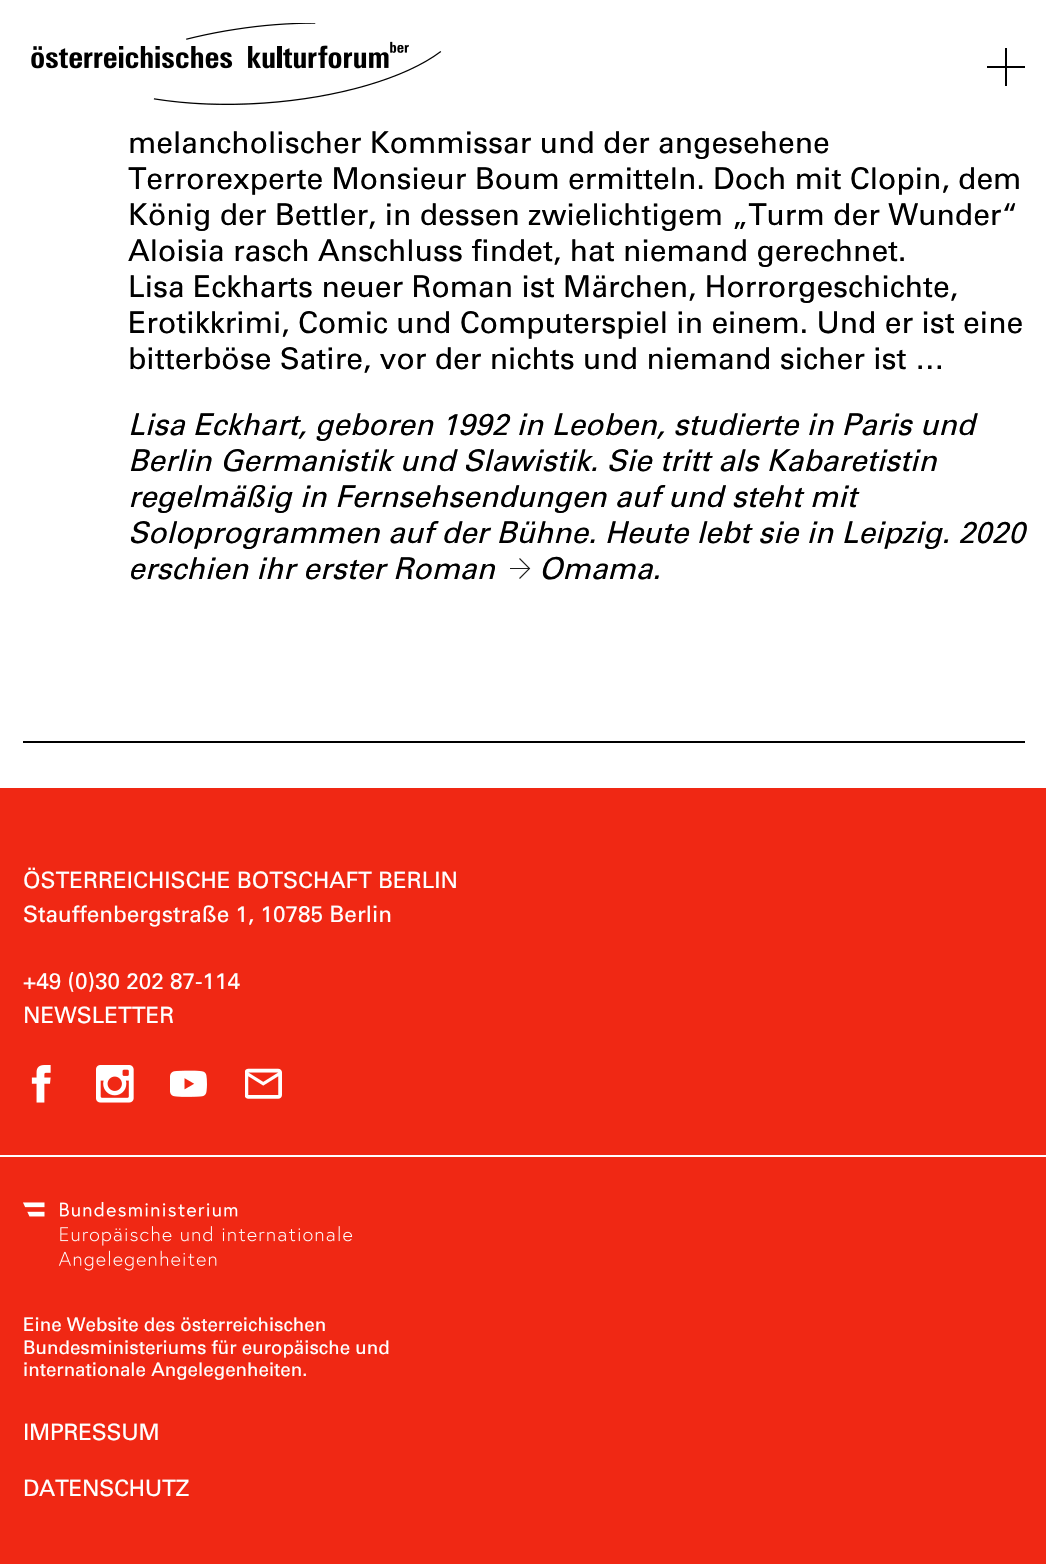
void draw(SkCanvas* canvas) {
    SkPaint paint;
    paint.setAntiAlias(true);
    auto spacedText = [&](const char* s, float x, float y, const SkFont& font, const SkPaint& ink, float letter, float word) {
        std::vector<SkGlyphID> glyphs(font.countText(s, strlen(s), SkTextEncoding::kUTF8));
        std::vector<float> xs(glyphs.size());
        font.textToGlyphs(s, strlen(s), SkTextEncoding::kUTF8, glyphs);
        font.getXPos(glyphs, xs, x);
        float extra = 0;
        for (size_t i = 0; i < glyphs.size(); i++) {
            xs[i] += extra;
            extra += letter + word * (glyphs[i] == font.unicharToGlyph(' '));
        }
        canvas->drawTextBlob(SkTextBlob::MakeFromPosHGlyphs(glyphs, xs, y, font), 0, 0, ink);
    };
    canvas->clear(0xFFFFFFFF);
    canvas->drawImageRect(SkImages::DeferredFromEncodedData(SkData::MakeFromFileName("img1.png")), SkRect::MakeXYWH(31, 23, 411, 82), SkSamplingOptions());
    paint.setColor(0xFF000000);
    canvas->drawRect(SkRect::MakeXYWH(1005, 48, 2, 38), paint);
    canvas->drawRect(SkRect::MakeXYWH(987, 66, 38, 2), paint);
    canvas->drawRect(SkRect::MakeXYWH(23, 741, 1002, 2), paint);
    SkFont font1(fontMgr->matchFamilyStyle("Univers", SkFontStyle::Normal()), 30);
    font1.setSubpixel(true);
    canvas->drawString("melancholischer Kommissar und der angesehene", 128, 153, font1, paint);
    canvas->drawString("Terrorexperte Monsieur Boum ermitteln. Doch mit Clopin, dem", 128, 189, font1, paint);
    canvas->drawString("König der Bettler, in dessen zwielichtigem „Turm der Wunder“", 128, 225, font1, paint);
    canvas->drawString("Aloisia rasch Anschluss findet, hat niemand gerechnet.", 128, 261, font1, paint);
    canvas->drawString("Lisa Eckharts neuer Roman ist Märchen, Horrorgeschichte,", 128, 297, font1, paint);
    canvas->drawString("Erotikkrimi, Comic und Computerspiel in einem. Und er ist eine", 128, 333, font1, paint);
    canvas->drawString("bitterböse Satire, vor der nichts und niemand sicher ist …", 128, 369, font1, paint);
    SkFont font2(fontMgr->matchFamilyStyle("Univers", SkFontStyle::Italic()), 30);
    font2.setSubpixel(true);
    canvas->drawString("Lisa Eckhart, geboren 1992 in Leoben, studierte in Paris und", 128, 435, font2, paint);
    canvas->drawString("Berlin Germanistik und Slawistik. Sie tritt als Kabaretistin", 128, 471, font2, paint);
    canvas->drawString("regelmäßig in Fernsehsendungen auf und steht mit", 128, 507, font2, paint);
    canvas->drawString("Soloprogrammen auf der Bühne. Heute lebt sie in Leipzig. 2020", 128, 543, font2, paint);
    canvas->drawString("erschien ihr erster Roman", 128, 579, font2, paint);
    paint.setStyle(SkPaint::kStroke_Style);
    paint.setStrokeWidth(1.1f);
    paint.setColor(0xFF1D1D1B);
    canvas->drawPath(SkPathBuilder().moveTo(519.5f, 558.5f).lineTo(529.5f, 568.5f).lineTo(519.5f, 578.5f).detach(), paint);
    paint.setStyle(SkPaint::kFill_Style);
    canvas->drawRect(SkRect::MakeXYWH(510, 568, 20, 1), paint);
    paint.setColor(0xFF000000);
    canvas->drawString("Omama.", 539, 579, font2, paint);
    paint.setColor(0xFFF02814);
    canvas->drawRect(SkRect::MakeXYWH(0, 788, 1046, 776), paint);
    SkFont font3(fontMgr->matchFamilyStyle("Univers", SkFontStyle::Normal()), 22.5f);
    font3.setSubpixel(true);
    paint.setColor(0xFFFFFFFF);
    canvas->drawString("ÖSTERREICHISCHE BOTSCHAFT BERLIN", 23, 888, font3, paint);
    canvas->drawString("Stauffenbergstraße 1, 10785 Berlin", 23, 922, font3, paint);
    canvas->drawString("+49 (0)30 202 87-114", 23, 989, font3, paint);
    canvas->drawString("NEWSLETTER", 23, 1023, font3, paint);
    canvas->drawImageRect(SkImages::DeferredFromEncodedData(SkData::MakeFromFileName("img2.png")), SkRect::MakeXYWH(31, 1065, 20, 38), SkSamplingOptions());
    canvas->drawImageRect(SkImages::DeferredFromEncodedData(SkData::MakeFromFileName("img3.png")), SkRect::MakeXYWH(96, 1065, 38, 38), SkSamplingOptions());
    canvas->drawImageRect(SkImages::DeferredFromEncodedData(SkData::MakeFromFileName("img4.png")), SkRect::MakeXYWH(170, 1070, 37, 27), SkSamplingOptions());
    canvas->drawImageRect(SkImages::DeferredFromEncodedData(SkData::MakeFromFileName("img5.png")), SkRect::MakeXYWH(245, 1068, 37, 31), SkSamplingOptions());
    canvas->drawRect(SkRect::MakeXYWH(0, 1155, 1046, 2), paint);
    canvas->drawImageRect(SkImages::DeferredFromEncodedData(SkData::MakeFromFileName("img6.png")), SkRect::MakeXYWH(23, 1202, 330, 69), SkSamplingOptions());
    SkFont font4(fontMgr->matchFamilyStyle("Univers", SkFontStyle::Normal()), 18.75f);
    font4.setSubpixel(true);
    canvas->drawString("Eine Website des österreichischen", 23, 1331, font4, paint);
    canvas->drawString("Bundesministeriums für europäische und", 23, 1354, font4, paint);
    canvas->drawString("internationale Angelegenheiten.", 23, 1376, font4, paint);
    spacedText("IMPRESSUM", 23, 1440, font3, paint, -0.25f, 0);
    spacedText("DATENSCHUTZ", 23, 1496, font3, paint, -0.25f, 0);
}
